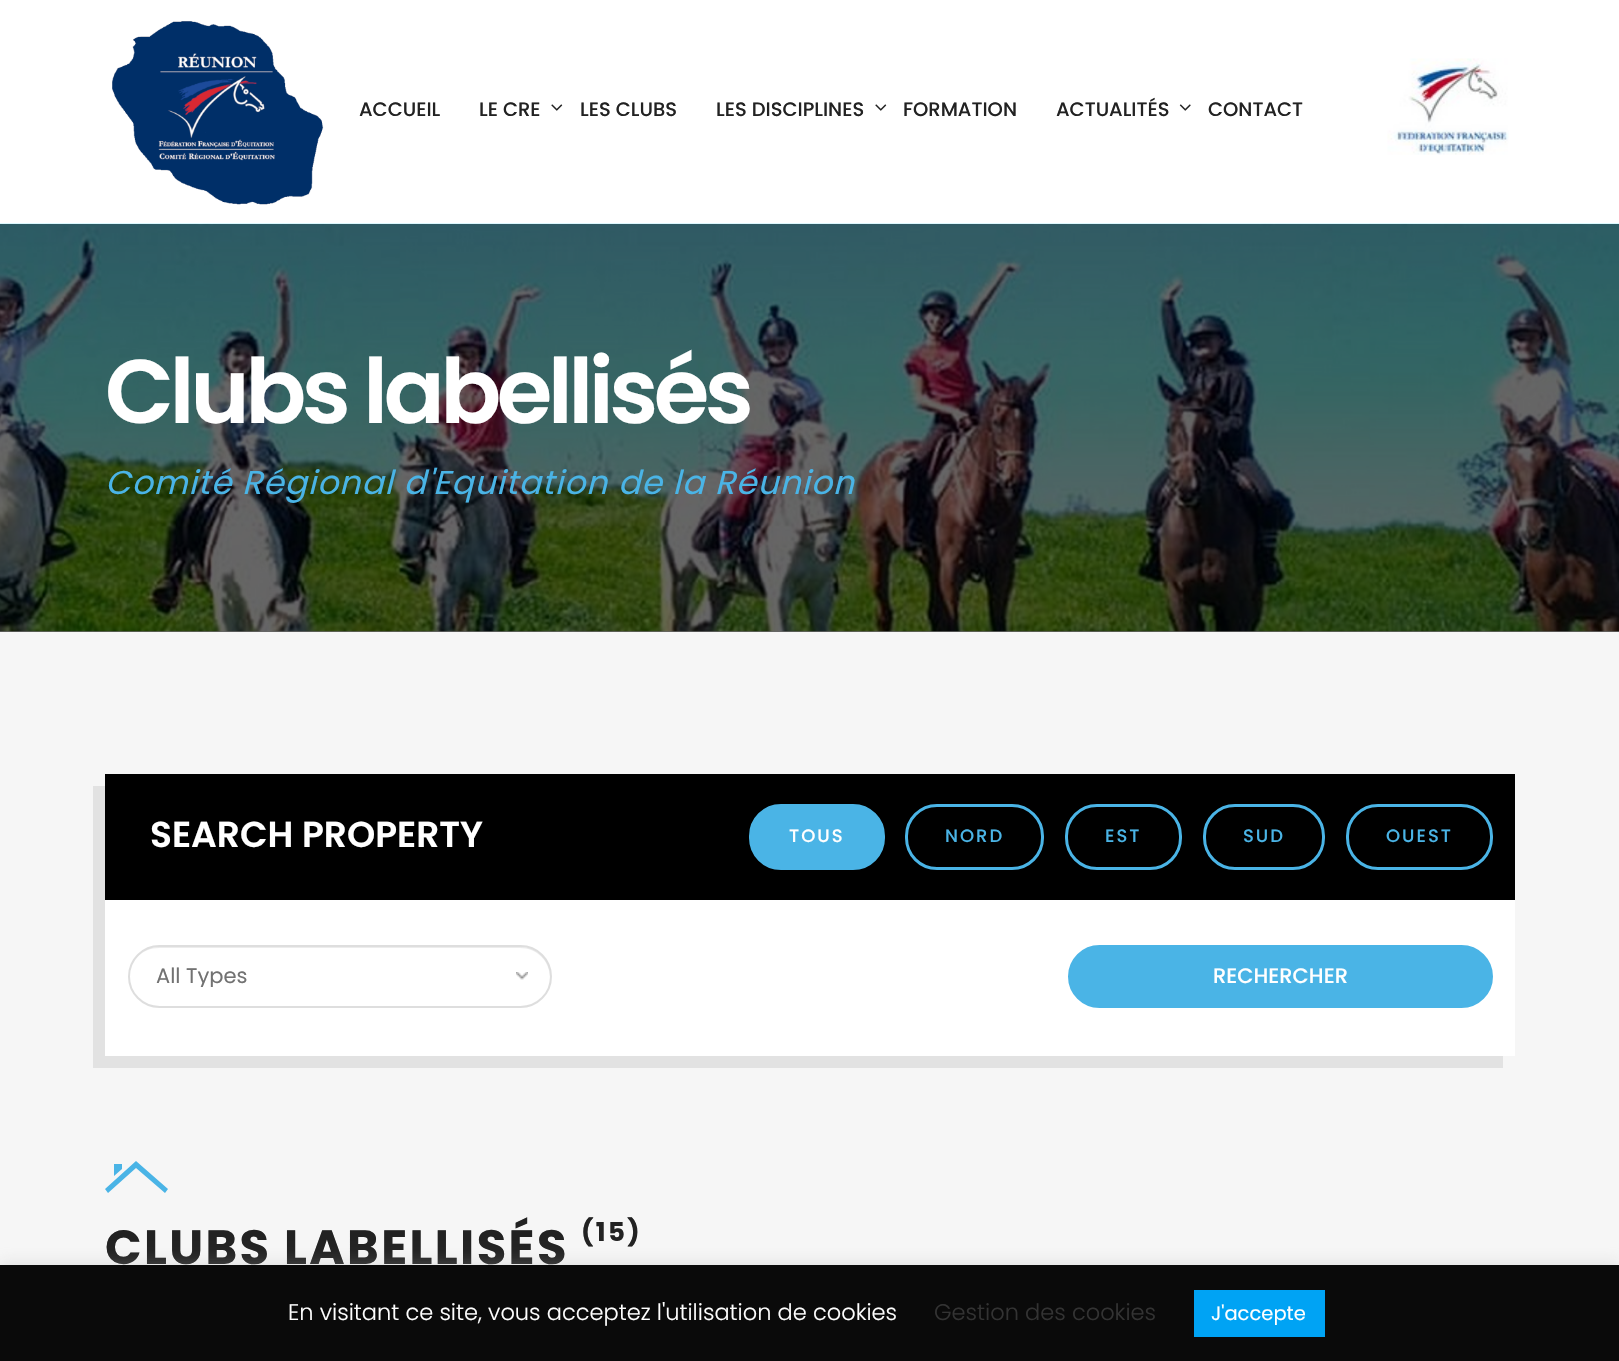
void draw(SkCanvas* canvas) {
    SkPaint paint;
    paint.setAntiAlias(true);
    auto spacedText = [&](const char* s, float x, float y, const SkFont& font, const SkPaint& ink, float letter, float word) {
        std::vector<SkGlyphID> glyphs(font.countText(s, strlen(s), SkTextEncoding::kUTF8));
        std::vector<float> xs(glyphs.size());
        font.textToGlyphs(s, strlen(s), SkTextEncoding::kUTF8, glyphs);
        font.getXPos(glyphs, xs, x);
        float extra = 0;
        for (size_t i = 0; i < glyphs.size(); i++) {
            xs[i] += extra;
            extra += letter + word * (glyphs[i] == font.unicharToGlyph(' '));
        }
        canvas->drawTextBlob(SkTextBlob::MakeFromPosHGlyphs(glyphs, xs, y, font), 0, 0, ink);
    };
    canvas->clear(0xFFFFFFFF);
    paint.setColor(0xFF666666);
    canvas->drawRect(SkRect::MakeXYWH(0, 631, 1619, 1), paint);
    canvas->drawImageRect(SkImages::DeferredFromEncodedData(SkData::MakeFromFileName("img1.png")), SkRect::MakeXYWH(112, 21, 212, 184), SkSamplingOptions());
    SkFont font1(fontMgr->matchFamilyStyle("Poppins", SkFontStyle(500, SkFontStyle::kNormal_Width, SkFontStyle::kUpright_Slant)), 19.5f);
    font1.setSubpixel(true);
    paint.setColor(0xFF222222);
    canvas->drawString("ACCUEIL", 359, 116, font1, paint);
    canvas->drawString("LE CRE", 479, 116, font1, paint);
    canvas->drawImageRect(SkImages::DeferredFromEncodedData(SkData::MakeFromFileName("img2.png")), SkRect::MakeXYWH(551, 104, 12, 7), SkSamplingOptions());
    canvas->drawString("LES CLUBS", 580, 116, font1, paint);
    canvas->drawString("LES DISCIPLINES", 716, 116, font1, paint);
    canvas->drawImageRect(SkImages::DeferredFromEncodedData(SkData::MakeFromFileName("img2.png")), SkRect::MakeXYWH(875, 104, 12, 7), SkSamplingOptions());
    canvas->drawString("FORMATION", 903, 116, font1, paint);
    canvas->drawString("ACTUALITÉS", 1056, 116, font1, paint);
    canvas->drawImageRect(SkImages::DeferredFromEncodedData(SkData::MakeFromFileName("img3.png")), SkRect::MakeXYWH(1179, 104, 12, 7), SkSamplingOptions());
    canvas->drawString("CONTACT", 1208, 116, font1, paint);
    canvas->drawImageRect(SkImages::DeferredFromEncodedData(SkData::MakeFromFileName("img4.png")), SkRect::MakeXYWH(1387, 58, 122, 97), SkSamplingOptions());
    canvas->drawImageRect(SkImages::DeferredFromEncodedData(SkData::MakeFromFileName("img5.png")), SkRect::MakeXYWH(0, 223, 1619, 409), SkSamplingOptions());
    SkFont font2(fontMgr->matchFamilyStyle("Poppins", SkFontStyle(600, SkFontStyle::kNormal_Width, SkFontStyle::kUpright_Slant)), 90);
    font2.setSubpixel(true);
    paint.setColor(0xFFFFFFFF);
    spacedText("Clubs labellisés", 105, 423, font2, paint, -4.5f, 0);
    SkFont font3(fontMgr->matchFamilyStyle("Poppins", SkFontStyle::Italic()), 33);
    font3.setSubpixel(true);
    paint.setColor(0xFF4AB4E6);
    spacedText("Comité Régional d'Equitation de la Réunion", 105, 494, font3, paint, 1, 0);
    paint.setColor(0xFFF6F6F6);
    canvas->drawRect(SkRect::MakeXYWH(0, 632, 1619, 633), paint);
    paint.setColor(0xFFE2E2E2);
    canvas->drawPath(SkPathBuilder().moveTo(93, 786).lineTo(93, 1068).lineTo(1503, 1068).lineTo(1503, 1056).lineTo(105, 1056).lineTo(105, 786).close().detach(), paint);
    paint.setColor(0xFF000000);
    canvas->drawRect(SkRect::MakeXYWH(105, 774, 1410, 126), paint);
    SkFont font4(fontMgr->matchFamilyStyle("Poppins", SkFontStyle(600, SkFontStyle::kNormal_Width, SkFontStyle::kUpright_Slant)), 36);
    font4.setSubpixel(true);
    paint.setColor(0xFFFFFFFF);
    canvas->drawString("SEARCH PROPERTY", 150, 847, font4, paint);
    canvas->drawRect(SkRect::MakeXYWH(105, 900, 1410, 156), paint);
    paint.setColor(0xFF4AB4E6);
    canvas->drawRoundRect(SkRect::MakeXYWH(750.5f, 805.5f, 133, 63), 30.5f, 30.5f, paint);
    paint.setStyle(SkPaint::kStroke_Style);
    paint.setStrokeWidth(3);
    canvas->drawRoundRect(SkRect::MakeXYWH(750.5f, 805.5f, 133, 63), 30.5f, 30.5f, paint);
    SkFont font5(fontMgr->matchFamilyStyle("Poppins", SkFontStyle(500, SkFontStyle::kNormal_Width, SkFontStyle::kUpright_Slant)), 18);
    font5.setSubpixel(true);
    paint.setStyle(SkPaint::kFill_Style);
    paint.setColor(0xFFFFFFFF);
    spacedText("TOUS", 789, 842, font5, paint, 2, 0);
    paint.setStyle(SkPaint::kStroke_Style);
    paint.setColor(0xFF4AB4E6);
    canvas->drawRoundRect(SkRect::MakeXYWH(906.5f, 805.5f, 136, 63), 30.5f, 30.5f, paint);
    paint.setStyle(SkPaint::kFill_Style);
    spacedText("NORD", 945, 842, font5, paint, 2, 0);
    paint.setStyle(SkPaint::kStroke_Style);
    canvas->drawRoundRect(SkRect::MakeXYWH(1066.5f, 805.5f, 114, 63), 30.5f, 30.5f, paint);
    paint.setStyle(SkPaint::kFill_Style);
    spacedText("EST", 1105, 842, font5, paint, 2, 0);
    paint.setStyle(SkPaint::kStroke_Style);
    canvas->drawRoundRect(SkRect::MakeXYWH(1204.5f, 805.5f, 119, 63), 30.5f, 30.5f, paint);
    paint.setStyle(SkPaint::kFill_Style);
    spacedText("SUD", 1243, 842, font5, paint, 2, 0);
    paint.setStyle(SkPaint::kStroke_Style);
    canvas->drawRoundRect(SkRect::MakeXYWH(1347.5f, 805.5f, 144, 63), 30.5f, 30.5f, paint);
    paint.setStyle(SkPaint::kFill_Style);
    spacedText("OUEST", 1386, 842, font5, paint, 2, 0);
    canvas->drawImageRect(SkImages::DeferredFromEncodedData(SkData::MakeFromFileName("img6.png")), SkRect::MakeXYWH(516, 972, 12, 8), SkSamplingOptions());
    paint.setColor(0xFFECECEC);
    canvas->drawPath(SkPathBuilder().moveTo(159, 948).lineTo(520, 948).cubicTo(537, 948, 550, 961, 550, 978).cubicTo(550, 985, 548, 991, 545, 995).cubicTo(549, 990, 551, 984, 551, 977).cubicTo(551, 960, 538, 947, 521, 947).lineTo(159, 947).cubicTo(142, 947, 129, 960, 129, 977).cubicTo(129, 961, 142, 948, 159, 948).close().detach(), paint);
    paint.setStyle(SkPaint::kStroke_Style);
    paint.setStrokeWidth(2);
    paint.setColor(0xFFDEDEDE);
    canvas->drawRoundRect(SkRect::MakeXYWH(129, 946, 422, 61), 30.5f, 30.5f, paint);
    canvas->save();
    canvas->clipRect(SkRect::MakeXYWH(156, 966, 368, 21));
    SkFont font6(fontMgr->matchFamilyStyle("Poppins", SkFontStyle::Normal()), 21);
    font6.setSubpixel(true);
    paint.setStyle(SkPaint::kFill_Style);
    paint.setColor(0xFF727272);
    canvas->drawString("All Types", 156, 983, font6, paint);
    canvas->restore();
    paint.setColor(0xFF4AB4E6);
    canvas->drawRoundRect(SkRect::MakeXYWH(1069.5f, 946.5f, 422, 60), 30, 30, paint);
    paint.setStyle(SkPaint::kStroke_Style);
    paint.setStrokeWidth(3);
    canvas->drawRoundRect(SkRect::MakeXYWH(1069.5f, 946.5f, 422, 60), 30, 30, paint);
    SkFont font7(fontMgr->matchFamilyStyle("Poppins", SkFontStyle(500, SkFontStyle::kNormal_Width, SkFontStyle::kUpright_Slant)), 21);
    font7.setSubpixel(true);
    paint.setStyle(SkPaint::kFill_Style);
    paint.setColor(0xFFFFFFFF);
    canvas->drawString("RECHERCHER", 1213, 983, font7, paint);
    paint.setColor(0xFF4AB4E6);
    canvas->drawPath(SkPathBuilder().moveTo(114, 1164).lineTo(122, 1164).lineTo(122, 1169).lineTo(114, 1176).close().moveTo(136, 1161).lineTo(105, 1189).lineTo(108, 1193).lineTo(136, 1168).lineTo(165, 1193).lineTo(168, 1189).close().detach(), paint);
    SkFont font8(fontMgr->matchFamilyStyle("Poppins", SkFontStyle::Bold()), 48);
    font8.setSubpixel(true);
    paint.setColor(0xFF222222);
    spacedText("CLUBS LABELLISÉS", 105, 1264, font8, paint, 2.4f, 0);
    SkFont font9(fontMgr->matchFamilyStyle("Poppins", SkFontStyle::Bold()), 26);
    font9.setSubpixel(true);
    spacedText("(15)", 581, 1241, font9, paint, 2.4f, 0);
    paint.setColor(0x4DACABAB);
    paint.setMaskFilter(SkMaskFilter::MakeBlur(kNormal_SkBlurStyle, 7.5f));
    canvas->drawRect(SkRect::MakeXYWH(0, 1263, 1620, 98), paint);
    paint.setMaskFilter(nullptr);
    paint.setColor(0xFF0A0A0A);
    canvas->drawRect(SkRect::MakeXYWH(0, 1265, 1619, 96), paint);
    SkFont font10(fontMgr->matchFamilyStyle("Poppins", SkFontStyle(300, SkFontStyle::kNormal_Width, SkFontStyle::kUpright_Slant)), 22.5f);
    font10.setSubpixel(true);
    paint.setColor(0xFFFFFFFF);
    canvas->drawString("En visitant ce site, vous acceptez l'utilisation de cookies", 288, 1320, font10, paint);
    paint.setColor(0xFF333333);
    canvas->drawString("Gestion des cookies", 934, 1320, font10, paint);
    paint.setColor(0xFF00A3F4);
    canvas->drawRect(SkRect::MakeXYWH(1194, 1290, 131, 47), paint);
    SkFont font11(fontMgr->matchFamilyStyle("Poppins", SkFontStyle::Normal()), 19.5f);
    font11.setSubpixel(true);
    paint.setColor(0xFFFFFFFF);
    canvas->drawString("J'accepte", 1211, 1320, font11, paint);
}
